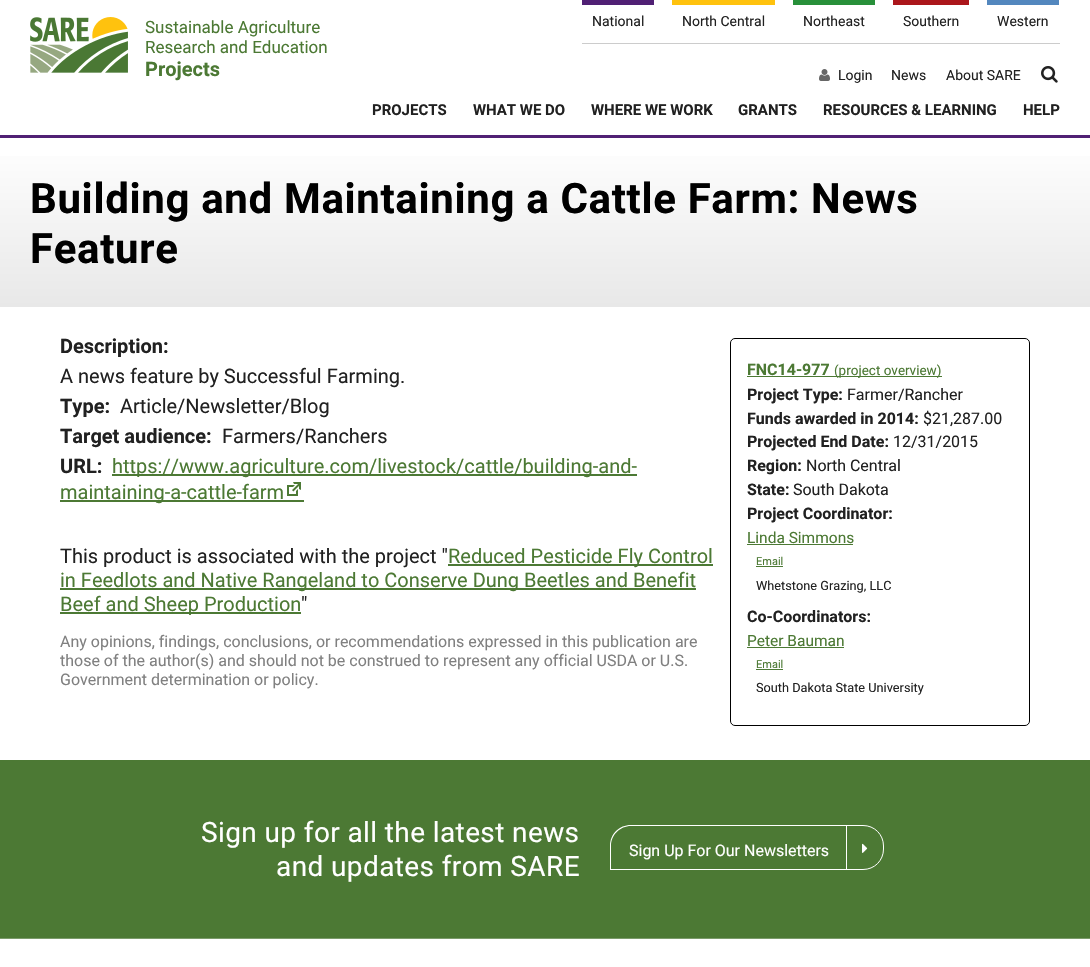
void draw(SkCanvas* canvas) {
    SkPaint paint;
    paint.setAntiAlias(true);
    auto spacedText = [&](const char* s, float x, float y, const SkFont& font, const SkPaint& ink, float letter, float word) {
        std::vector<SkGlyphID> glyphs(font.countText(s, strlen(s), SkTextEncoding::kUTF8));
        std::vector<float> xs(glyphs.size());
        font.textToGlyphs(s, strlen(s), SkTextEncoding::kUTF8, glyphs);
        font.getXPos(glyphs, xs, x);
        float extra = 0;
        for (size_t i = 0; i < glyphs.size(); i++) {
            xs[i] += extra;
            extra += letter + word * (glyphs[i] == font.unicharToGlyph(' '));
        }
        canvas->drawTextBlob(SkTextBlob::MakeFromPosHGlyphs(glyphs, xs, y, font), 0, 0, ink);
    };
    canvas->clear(0xFFFFFFFF);
    paint.setColor(0xFF502074);
    canvas->drawRect(SkRect::MakeXYWH(0, 135, 1090, 3), paint);
    paint.setColor(0xFFCCCCCC);
    canvas->drawRect(SkRect::MakeXYWH(582, 43, 478, 1), paint);
    paint.setColor(0xFF502074);
    canvas->drawRect(SkRect::MakeXYWH(582, 0, 72, 5), paint);
    SkFont font1(fontMgr->matchFamilyStyle("Roboto", SkFontStyle::Normal()), 14);
    font1.setSubpixel(true);
    paint.setColor(0xFF212121);
    canvas->drawString("National", 592, 26, font1, paint);
    paint.setColor(0xFFFFC20E);
    canvas->drawRect(SkRect::MakeXYWH(672, 0, 103, 5), paint);
    paint.setColor(0xFF212121);
    canvas->drawString("North Central", 682, 26, font1, paint);
    paint.setColor(0xFF28903A);
    canvas->drawRect(SkRect::MakeXYWH(793, 0, 82, 5), paint);
    paint.setColor(0xFF212121);
    canvas->drawString("Northeast", 803, 26, font1, paint);
    paint.setColor(0xFFAB161B);
    canvas->drawRect(SkRect::MakeXYWH(893, 0, 76, 5), paint);
    paint.setColor(0xFF212121);
    canvas->drawString("Southern", 903, 26, font1, paint);
    paint.setColor(0xFF5387BE);
    canvas->drawRect(SkRect::MakeXYWH(987, 0, 72, 5), paint);
    paint.setColor(0xFF212121);
    canvas->drawString("Western", 997, 26, font1, paint);
    canvas->drawImageRect(SkImages::DeferredFromEncodedData(SkData::MakeFromFileName("img1.png")), SkRect::MakeXYWH(30, 17, 98, 56), SkSamplingOptions());
    SkFont font2(fontMgr->matchFamilyStyle("Roboto", SkFontStyle::Normal()), 17);
    font2.setSubpixel(true);
    paint.setColor(0xFF4C7934);
    canvas->drawString("Sustainable Agriculture", 145, 33, font2, paint);
    canvas->drawString("Research and Education", 145, 53, font2, paint);
    SkFont font3(fontMgr->matchFamilyStyle("Roboto", SkFontStyle::Bold()), 20);
    font3.setSubpixel(true);
    canvas->drawString("Projects", 145, 76, font3, paint);
    canvas->drawImageRect(SkImages::DeferredFromEncodedData(SkData::MakeFromFileName("img2.png")), SkRect::MakeXYWH(819, 69, 11, 12), SkSamplingOptions());
    paint.setColor(0xFF212121);
    canvas->drawString("Login", 838, 80, font1, paint);
    canvas->drawString("News", 891, 80, font1, paint);
    canvas->drawString("About SARE", 946, 80, font1, paint);
    canvas->drawImageRect(SkImages::DeferredFromEncodedData(SkData::MakeFromFileName("img3.png")), SkRect::MakeXYWH(1041, 66, 17, 17), SkSamplingOptions());
    SkFont font4(fontMgr->matchFamilyStyle("Roboto", SkFontStyle::Bold()), 15);
    font4.setSubpixel(true);
    canvas->drawString("PROJECTS", 372, 115, font4, paint);
    canvas->drawString("WHAT WE DO", 473, 115, font4, paint);
    canvas->drawString("WHERE WE WORK", 591, 115, font4, paint);
    canvas->drawString("GRANTS", 738, 115, font4, paint);
    canvas->drawString("RESOURCES & LEARNING", 823, 115, font4, paint);
    canvas->drawString("HELP", 1023, 115, font4, paint);
    {
        const SkColor colors[] = {0xFFFFFFFF, 0xFFE8E8E8};
        const float stops[] = {0, 1};
        const SkPoint ends[] = {{545, 138}, {545, 307}};
        paint.setShader(SkGradientShader::MakeLinear(ends, colors, stops, 2, SkTileMode::kClamp));
        paint.setAlpha(255);
    }
    canvas->drawRect(SkRect::MakeXYWH(0, 156, 1090, 151), paint);
    SkFont font5(fontMgr->matchFamilyStyle("Roboto", SkFontStyle::Bold()), 42);
    font5.setSubpixel(true);
    paint.setShader(nullptr);
    paint.setColor(0xFF000000);
    spacedText("Building and Maintaining a Cattle Farm: News", 30, 213, font5, paint, 0.65f, 0);
    spacedText("Feature", 30, 263, font5, paint, 0.65f, 0);
    paint.setColor(0xFF212121);
    canvas->drawString("Description:", 60, 353, font3, paint);
    SkFont font6(fontMgr->matchFamilyStyle("Roboto", SkFontStyle::Normal()), 20);
    font6.setSubpixel(true);
    canvas->drawString("A news feature by Successful Farming.", 60, 383, font6, paint);
    paint.setStyle(SkPaint::kStroke_Style);
    paint.setStrokeWidth(1);
    paint.setColor(0xFF000000);
    canvas->drawRoundRect(SkRect::MakeXYWH(730.5f, 338.5f, 299, 387), 4.5f, 4.5f, paint);
    SkFont font7(fontMgr->matchFamilyStyle("Roboto", SkFontStyle::Bold()), 16);
    font7.setSubpixel(true);
    paint.setStyle(SkPaint::kFill_Style);
    paint.setColor(0xFF4C7934);
    canvas->drawString("FNC14-977", 747, 375, font7, paint);
    canvas->drawRect(SkRect::MakeXYWH(747, 376, 195, 1), paint);
    SkFont font8(fontMgr->matchFamilyStyle("Roboto", SkFontStyle::Normal()), 13.5f);
    font8.setSubpixel(true);
    canvas->drawString("(project overview)", 834, 375, font8, paint);
    paint.setColor(0xFF212121);
    canvas->drawString("Project Type:", 747, 400, font7, paint);
    SkFont font9(fontMgr->matchFamilyStyle("Roboto", SkFontStyle::Normal()), 16);
    font9.setSubpixel(true);
    canvas->drawString("Farmer/Rancher", 847, 400, font9, paint);
    canvas->drawString("Funds awarded in 2014:", 747, 424, font7, paint);
    canvas->drawString("$21,287.00", 923, 424, font9, paint);
    canvas->drawString("Projected End Date:", 747, 447, font7, paint);
    canvas->drawString("12/31/2015", 893, 447, font9, paint);
    canvas->drawString("Region:", 747, 471, font7, paint);
    canvas->drawString("North Central", 806, 471, font9, paint);
    canvas->drawString("State:", 747, 495, font7, paint);
    canvas->drawString("South Dakota", 793, 495, font9, paint);
    canvas->drawString("Project Coordinator:", 747, 519, font7, paint);
    SkFont font10(fontMgr->matchFamilyStyle("Roboto", SkFontStyle::Normal()), 15.5f);
    font10.setSubpixel(true);
    paint.setColor(0xFF4C7934);
    canvas->drawString("Linda Simmons", 747, 543, font10, paint);
    canvas->drawRect(SkRect::MakeXYWH(747, 544, 106, 1), paint);
    SkFont font11(fontMgr->matchFamilyStyle("Roboto", SkFontStyle::Normal()), 11);
    font11.setSubpixel(true);
    canvas->drawString("Email", 756, 565, font11, paint);
    canvas->drawRect(SkRect::MakeXYWH(756, 566, 27, 1), paint);
    SkFont font12(fontMgr->matchFamilyStyle("Roboto", SkFontStyle::Normal()), 12.75f);
    font12.setSubpixel(true);
    paint.setColor(0xFF212121);
    canvas->drawString("Whetstone Grazing, LLC", 756, 590, font12, paint);
    canvas->drawString("Co-Coordinators:", 747, 622, font7, paint);
    paint.setColor(0xFF4C7934);
    canvas->drawString("Peter Bauman", 747, 646, font10, paint);
    canvas->drawRect(SkRect::MakeXYWH(747, 647, 97, 1), paint);
    canvas->drawString("Email", 756, 668, font11, paint);
    canvas->drawRect(SkRect::MakeXYWH(756, 669, 27, 1), paint);
    paint.setColor(0xFF212121);
    canvas->drawString("South Dakota State University", 756, 692, font12, paint);
    canvas->drawString("Type:", 60, 413, font3, paint);
    canvas->drawString("Article/Newsletter/Blog", 120, 413, font6, paint);
    canvas->drawString("Target audience:", 60, 443, font3, paint);
    canvas->drawString("Farmers/Ranchers", 222, 443, font6, paint);
    canvas->drawString("URL:", 60, 473, font3, paint);
    paint.setColor(0xFF4C7934);
    canvas->drawRect(SkRect::MakeXYWH(112, 474, 525, 2), paint);
    canvas->drawString("https://www.agriculture.com/livestock/cattle/building-and-", 112, 473, font6, paint);
    canvas->drawRect(SkRect::MakeXYWH(60, 500, 244, 2), paint);
    canvas->drawString("maintaining-a-cattle-farm", 60, 499, font6, paint);
    canvas->drawImageRect(SkImages::DeferredFromEncodedData(SkData::MakeFromFileName("img4.png")), SkRect::MakeXYWH(287, 482, 14, 14), SkSamplingOptions());
    paint.setColor(0xFF212121);
    canvas->drawString("This product is associated with the project \"", 60, 563, font6, paint);
    paint.setColor(0xFF4C7934);
    canvas->drawRect(SkRect::MakeXYWH(448, 564, 265, 2), paint);
    canvas->drawString("Reduced Pesticide Fly Control", 448, 563, font6, paint);
    canvas->drawRect(SkRect::MakeXYWH(60, 588, 636, 2), paint);
    canvas->drawString("in Feedlots and Native Rangeland to Conserve Dung Beetles and Benefit", 60, 587, font6, paint);
    canvas->drawRect(SkRect::MakeXYWH(60, 612, 241, 2), paint);
    canvas->drawString("Beef and Sheep Production", 60, 611, font6, paint);
    paint.setColor(0xFF212121);
    canvas->drawString("\"", 301, 611, font6, paint);
    paint.setColor(0xFF808080);
    canvas->drawString("Any opinions, findings, conclusions, or recommendations expressed in this publication are", 60, 647, font9, paint);
    canvas->drawString("those of the author(s) and should not be construed to represent any official USDA or U.S.", 60, 666, font9, paint);
    canvas->drawString("Government determination or policy.", 60, 685, font9, paint);
    paint.setColor(0xFF4C7934);
    canvas->drawRect(SkRect::MakeXYWH(0, 760, 1090, 178), paint);
    paint.setColor(0xFF7B9B6A);
    canvas->drawRect(SkRect::MakeXYWH(0, 938, 1090, 1), paint);
    SkFont font13(fontMgr->matchFamilyStyle("Roboto", SkFontStyle::Normal()), 28);
    font13.setSubpixel(true);
    paint.setColor(0xFFFFFFFF);
    spacedText("Sign up for all the latest news", 201, 842, font13, paint, 0.4f, 0);
    spacedText("and updates from SARE", 276, 876, font13, paint, 0.4f, 0);
    canvas->drawPath(SkPathBuilder(SkPathFillType::kEvenOdd).moveTo(631, 825).lineTo(847, 825).lineTo(847, 870).lineTo(610, 870).lineTo(610, 846).cubicTo(610, 834, 619, 825, 631, 825).close().moveTo(631, 826).lineTo(847, 826).lineTo(847, 869).lineTo(611, 869).lineTo(611, 846).cubicTo(611, 835, 620, 826, 631, 826).close().detach(), paint);
    canvas->drawString("Sign Up For Our Newsletters", 629, 856, font9, paint);
    paint.setStyle(SkPaint::kStroke_Style);
    canvas->drawPath(SkPathBuilder().moveTo(846.5f, 825.5f).lineTo(863, 825.5f).cubicTo(874.5f, 825.5f, 883.5f, 834.5f, 883.5f, 846).lineTo(883.5f, 849).cubicTo(883.5f, 860.5f, 874.5f, 869.5f, 863, 869.5f).lineTo(846.5f, 869.5f).close().detach(), paint);
    canvas->drawImageRect(SkImages::DeferredFromEncodedData(SkData::MakeFromFileName("img5.png")), SkRect::MakeXYWH(862, 843, 6, 10), SkSamplingOptions());
}
